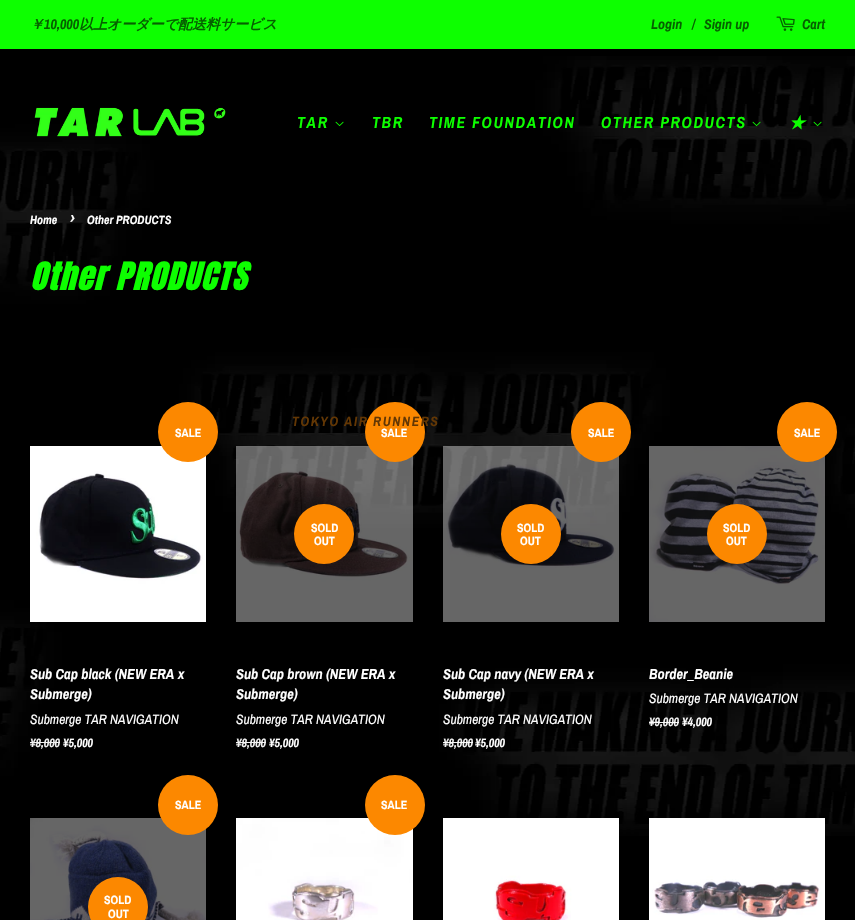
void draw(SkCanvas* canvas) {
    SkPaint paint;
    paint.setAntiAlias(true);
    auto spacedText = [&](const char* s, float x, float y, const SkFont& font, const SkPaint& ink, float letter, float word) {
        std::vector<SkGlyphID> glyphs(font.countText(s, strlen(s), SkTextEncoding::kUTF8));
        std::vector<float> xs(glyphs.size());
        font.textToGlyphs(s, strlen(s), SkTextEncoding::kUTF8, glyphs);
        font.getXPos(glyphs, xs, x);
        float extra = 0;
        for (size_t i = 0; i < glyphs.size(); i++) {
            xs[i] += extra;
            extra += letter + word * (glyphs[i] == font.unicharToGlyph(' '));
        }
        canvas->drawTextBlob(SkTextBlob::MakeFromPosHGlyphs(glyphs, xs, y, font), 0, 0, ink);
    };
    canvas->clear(0xFF000000);
    paint.setColor(0xFF0DFF00);
    canvas->drawRect(SkRect::MakeXYWH(0, 0, 855, 49), paint);
    SkFont font1(fontMgr->matchFamilyStyle("WenQuanYi Zen Hei", SkFontStyle::BoldItalic()), 14);
    font1.setSubpixel(true);
    paint.setColor(0xFF056000);
    canvas->drawString("￥", 30, 29, font1, paint);
    SkFont font2(fontMgr->matchFamilyStyle("Archivo Narrow", SkFontStyle::BoldItalic()), 14);
    font2.setSubpixel(true);
    canvas->drawString("10,000", 44, 29, font2, paint);
    canvas->drawString("以上オーダーで配送料サービス", 79, 29, font1, paint);
    canvas->drawString("Login", 651, 29, font2, paint);
    canvas->drawString("/", 692, 29, font2, paint);
    canvas->drawString("Sigin up", 704, 29, font2, paint);
    canvas->drawImageRect(SkImages::DeferredFromEncodedData(SkData::MakeFromFileName("img1.png")), SkRect::MakeXYWH(776, 16, 19, 15), SkSamplingOptions());
    canvas->drawString("Cart", 802, 29, font2, paint);
    canvas->drawImageRect(SkImages::DeferredFromEncodedData(SkData::MakeFromFileName("img6.png")), SkRect::MakeXYWH(0, 56, 855, 780), SkSamplingOptions());
    canvas->drawImageRect(SkImages::DeferredFromEncodedData(SkData::MakeFromFileName("img2.png")), SkRect::MakeXYWH(34, 107, 192, 30), SkSamplingOptions());
    SkFont font3(fontMgr->matchFamilyStyle("Archivo Narrow", SkFontStyle::BoldItalic()), 16);
    font3.setSubpixel(true);
    paint.setColor(0xFF0DFF00);
    spacedText("TAR", 297, 128, font3, paint, 1.6f, 0);
    canvas->drawImageRect(SkImages::DeferredFromEncodedData(SkData::MakeFromFileName("img3.png")), SkRect::MakeXYWH(335, 121, 9, 6), SkSamplingOptions());
    canvas->drawImageRect(SkImages::DeferredFromEncodedData(SkData::MakeFromFileName("img8.png")), SkRect::MakeXYWH(236, 446, 177, 176), SkSamplingOptions());
    paint.setColor(0xFFFC8800);
    canvas->drawCircle(395, 432, 30, paint);
    SkFont font4(fontMgr->matchFamilyStyle("Archivo Narrow", SkFontStyle::BoldItalic()), 13.6f);
    font4.setSubpixel(true);
    paint.setColor(0xFF633704);
    spacedText("TOKYO AIR RUNNERS", 292, 426, font4, paint, 1.6f, 0);
    paint.setColor(0xFF0DFF00);
    spacedText("TIME FOUNDATION", 429, 128, font3, paint, 1.6f, 0);
    spacedText("OTHER PRODUCTS", 601, 128, font3, paint, 1.6f, 0);
    canvas->drawImageRect(SkImages::DeferredFromEncodedData(SkData::MakeFromFileName("img4.png")), SkRect::MakeXYWH(752, 121, 9, 6), SkSamplingOptions());
    SkFont font5(fontMgr->matchFamilyStyle("WenQuanYi Zen Hei", SkFontStyle::BoldItalic()), 16);
    font5.setSubpixel(true);
    spacedText("★", 789, 128, font5, paint, 1.6f, 0);
    canvas->drawImageRect(SkImages::DeferredFromEncodedData(SkData::MakeFromFileName("img5.png")), SkRect::MakeXYWH(813, 121, 9, 6), SkSamplingOptions());
    spacedText("TBR", 372, 128, font3, paint, 1.6f, 0);
    SkFont font6(fontMgr->matchFamilyStyle("Archivo Narrow", SkFontStyle::BoldItalic()), 12);
    font6.setSubpixel(true);
    paint.setColor(0xFFFFFFFF);
    canvas->drawString("Home", 30, 224, font6, paint);
    SkFont font7(fontMgr->matchFamilyStyle("Archivo Narrow", SkFontStyle::BoldItalic()), 17);
    font7.setSubpixel(true);
    canvas->drawString("›", 70, 224, font7, paint);
    canvas->drawString("Other PRODUCTS", 87, 224, font6, paint);
    SkFont font8(fontMgr->matchFamilyStyle("Anton", SkFontStyle::BoldItalic()), 32);
    font8.setSubpixel(true);
    paint.setColor(0xFF0DFF00);
    spacedText("Other PRODUCTS", 30, 290, font8, paint, 1.6f, 0);
    canvas->drawImageRect(SkImages::DeferredFromEncodedData(SkData::MakeFromFileName("img7.png")), SkRect::MakeXYWH(30, 446, 176, 176), SkSamplingOptions());
    paint.setColor(0xFFFC8800);
    canvas->drawCircle(188, 432, 30, paint);
    SkFont font9(fontMgr->matchFamilyStyle("Archivo Narrow", SkFontStyle::Bold()), 12);
    font9.setSubpixel(true);
    paint.setColor(0xFFFFFFFF);
    canvas->drawString("SALE", 175, 437, font9, paint);
    SkFont font10(fontMgr->matchFamilyStyle("Archivo Narrow", SkFontStyle::BoldItalic()), 14.4f);
    font10.setSubpixel(true);
    canvas->drawString("Sub Cap black (NEW ERA x", 30, 679, font10, paint);
    canvas->drawString("Submerge)", 30, 699, font10, paint);
    SkFont font11(fontMgr->matchFamilyStyle("Archivo Narrow", SkFontStyle::Italic()), 13.6f);
    font11.setSubpixel(true);
    canvas->drawString("Submerge TAR NAVIGATION", 30, 724, font11, paint);
    paint.setColor(0xFFF2F2F2);
    canvas->drawString("¥8,000", 30, 747, font6, paint);
    canvas->drawRect(SkRect::MakeXYWH(30, 742, 30, 1), paint);
    paint.setColor(0xFFFFFFFF);
    canvas->drawString("¥5,000", 63, 747, font6, paint);
    canvas->drawString("SALE", 381, 437, font9, paint);
    paint.setColor(0xFFFC8800);
    canvas->drawCircle(324, 534, 30, paint);
    paint.setColor(0xFFFFFFFF);
    canvas->drawString("SOLD", 311, 532, font9, paint);
    canvas->drawString("OUT", 314, 545, font9, paint);
    canvas->drawString("Sub Cap brown (NEW ERA x", 236, 679, font10, paint);
    canvas->drawString("Submerge)", 236, 699, font10, paint);
    canvas->drawString("Submerge TAR NAVIGATION", 236, 724, font11, paint);
    paint.setColor(0xFFF2F2F2);
    canvas->drawString("¥8,000", 236, 747, font6, paint);
    canvas->drawRect(SkRect::MakeXYWH(236, 742, 30, 1), paint);
    paint.setColor(0xFFFFFFFF);
    canvas->drawString("¥5,000", 269, 747, font6, paint);
    canvas->drawImageRect(SkImages::DeferredFromEncodedData(SkData::MakeFromFileName("img9.png")), SkRect::MakeXYWH(443, 446, 176, 176), SkSamplingOptions());
    paint.setColor(0xFFFC8800);
    canvas->drawCircle(601, 432, 30, paint);
    paint.setColor(0xFFFFFFFF);
    canvas->drawString("SALE", 588, 437, font9, paint);
    paint.setColor(0xFFFC8800);
    canvas->drawCircle(531, 534, 30, paint);
    paint.setColor(0xFFFFFFFF);
    canvas->drawString("SOLD", 517, 532, font9, paint);
    canvas->drawString("OUT", 520, 545, font9, paint);
    canvas->drawString("Sub Cap navy (NEW ERA x", 443, 679, font10, paint);
    canvas->drawString("Submerge)", 443, 699, font10, paint);
    canvas->drawString("Submerge TAR NAVIGATION", 443, 724, font11, paint);
    paint.setColor(0xFFF2F2F2);
    canvas->drawString("¥8,000", 443, 747, font6, paint);
    paint.setColor(0xF2FFFFFF);
    canvas->drawRect(SkRect::MakeXYWH(443, 742, 30, 1), paint);
    paint.setColor(0xFFFFFFFF);
    canvas->drawString("¥5,000", 475, 747, font6, paint);
    canvas->drawImageRect(SkImages::DeferredFromEncodedData(SkData::MakeFromFileName("img10.png")), SkRect::MakeXYWH(649, 446, 176, 176), SkSamplingOptions());
    paint.setColor(0xFFFC8800);
    canvas->drawCircle(807, 432, 30, paint);
    paint.setColor(0xFFFFFFFF);
    canvas->drawString("SALE", 794, 437, font9, paint);
    paint.setColor(0xFFFC8800);
    canvas->drawCircle(737, 534, 30, paint);
    paint.setColor(0xFFFFFFFF);
    canvas->drawString("SOLD", 723, 532, font9, paint);
    canvas->drawString("OUT", 726, 545, font9, paint);
    canvas->drawString("Border_Beanie", 649, 679, font10, paint);
    canvas->drawString("Submerge TAR NAVIGATION", 649, 703, font11, paint);
    paint.setColor(0xFFF2F2F2);
    canvas->drawString("¥9,000", 649, 726, font6, paint);
    paint.setColor(0xF2FFFFFF);
    canvas->drawRect(SkRect::MakeXYWH(649, 722, 30, 1), paint);
    paint.setColor(0xFFFFFFFF);
    canvas->drawString("¥4,000", 682, 726, font6, paint);
    canvas->drawImageRect(SkImages::DeferredFromEncodedData(SkData::MakeFromFileName("img11.png")), SkRect::MakeXYWH(30, 818, 176, 102), SkSamplingOptions());
    paint.setColor(0xFFFC8800);
    canvas->drawCircle(188, 805, 30, paint);
    paint.setColor(0xFFFFFFFF);
    canvas->drawString("SALE", 175, 809, font9, paint);
    paint.setColor(0xFFFC8800);
    canvas->drawCircle(118, 907, 30, paint);
    paint.setColor(0xFFFFFFFF);
    canvas->drawString("SOLD", 104, 904, font9, paint);
    canvas->drawString("OUT", 108, 918, font9, paint);
    canvas->drawImageRect(SkImages::DeferredFromEncodedData(SkData::MakeFromFileName("img12.png")), SkRect::MakeXYWH(236, 818, 177, 102), SkSamplingOptions());
    paint.setColor(0xFFFC8800);
    canvas->drawCircle(395, 805, 30, paint);
    paint.setColor(0xFFFFFFFF);
    canvas->drawString("SALE", 381, 809, font9, paint);
    canvas->drawImageRect(SkImages::DeferredFromEncodedData(SkData::MakeFromFileName("img13.png")), SkRect::MakeXYWH(443, 818, 176, 102), SkSamplingOptions());
    canvas->drawImageRect(SkImages::DeferredFromEncodedData(SkData::MakeFromFileName("img14.png")), SkRect::MakeXYWH(649, 818, 176, 102), SkSamplingOptions());
}
